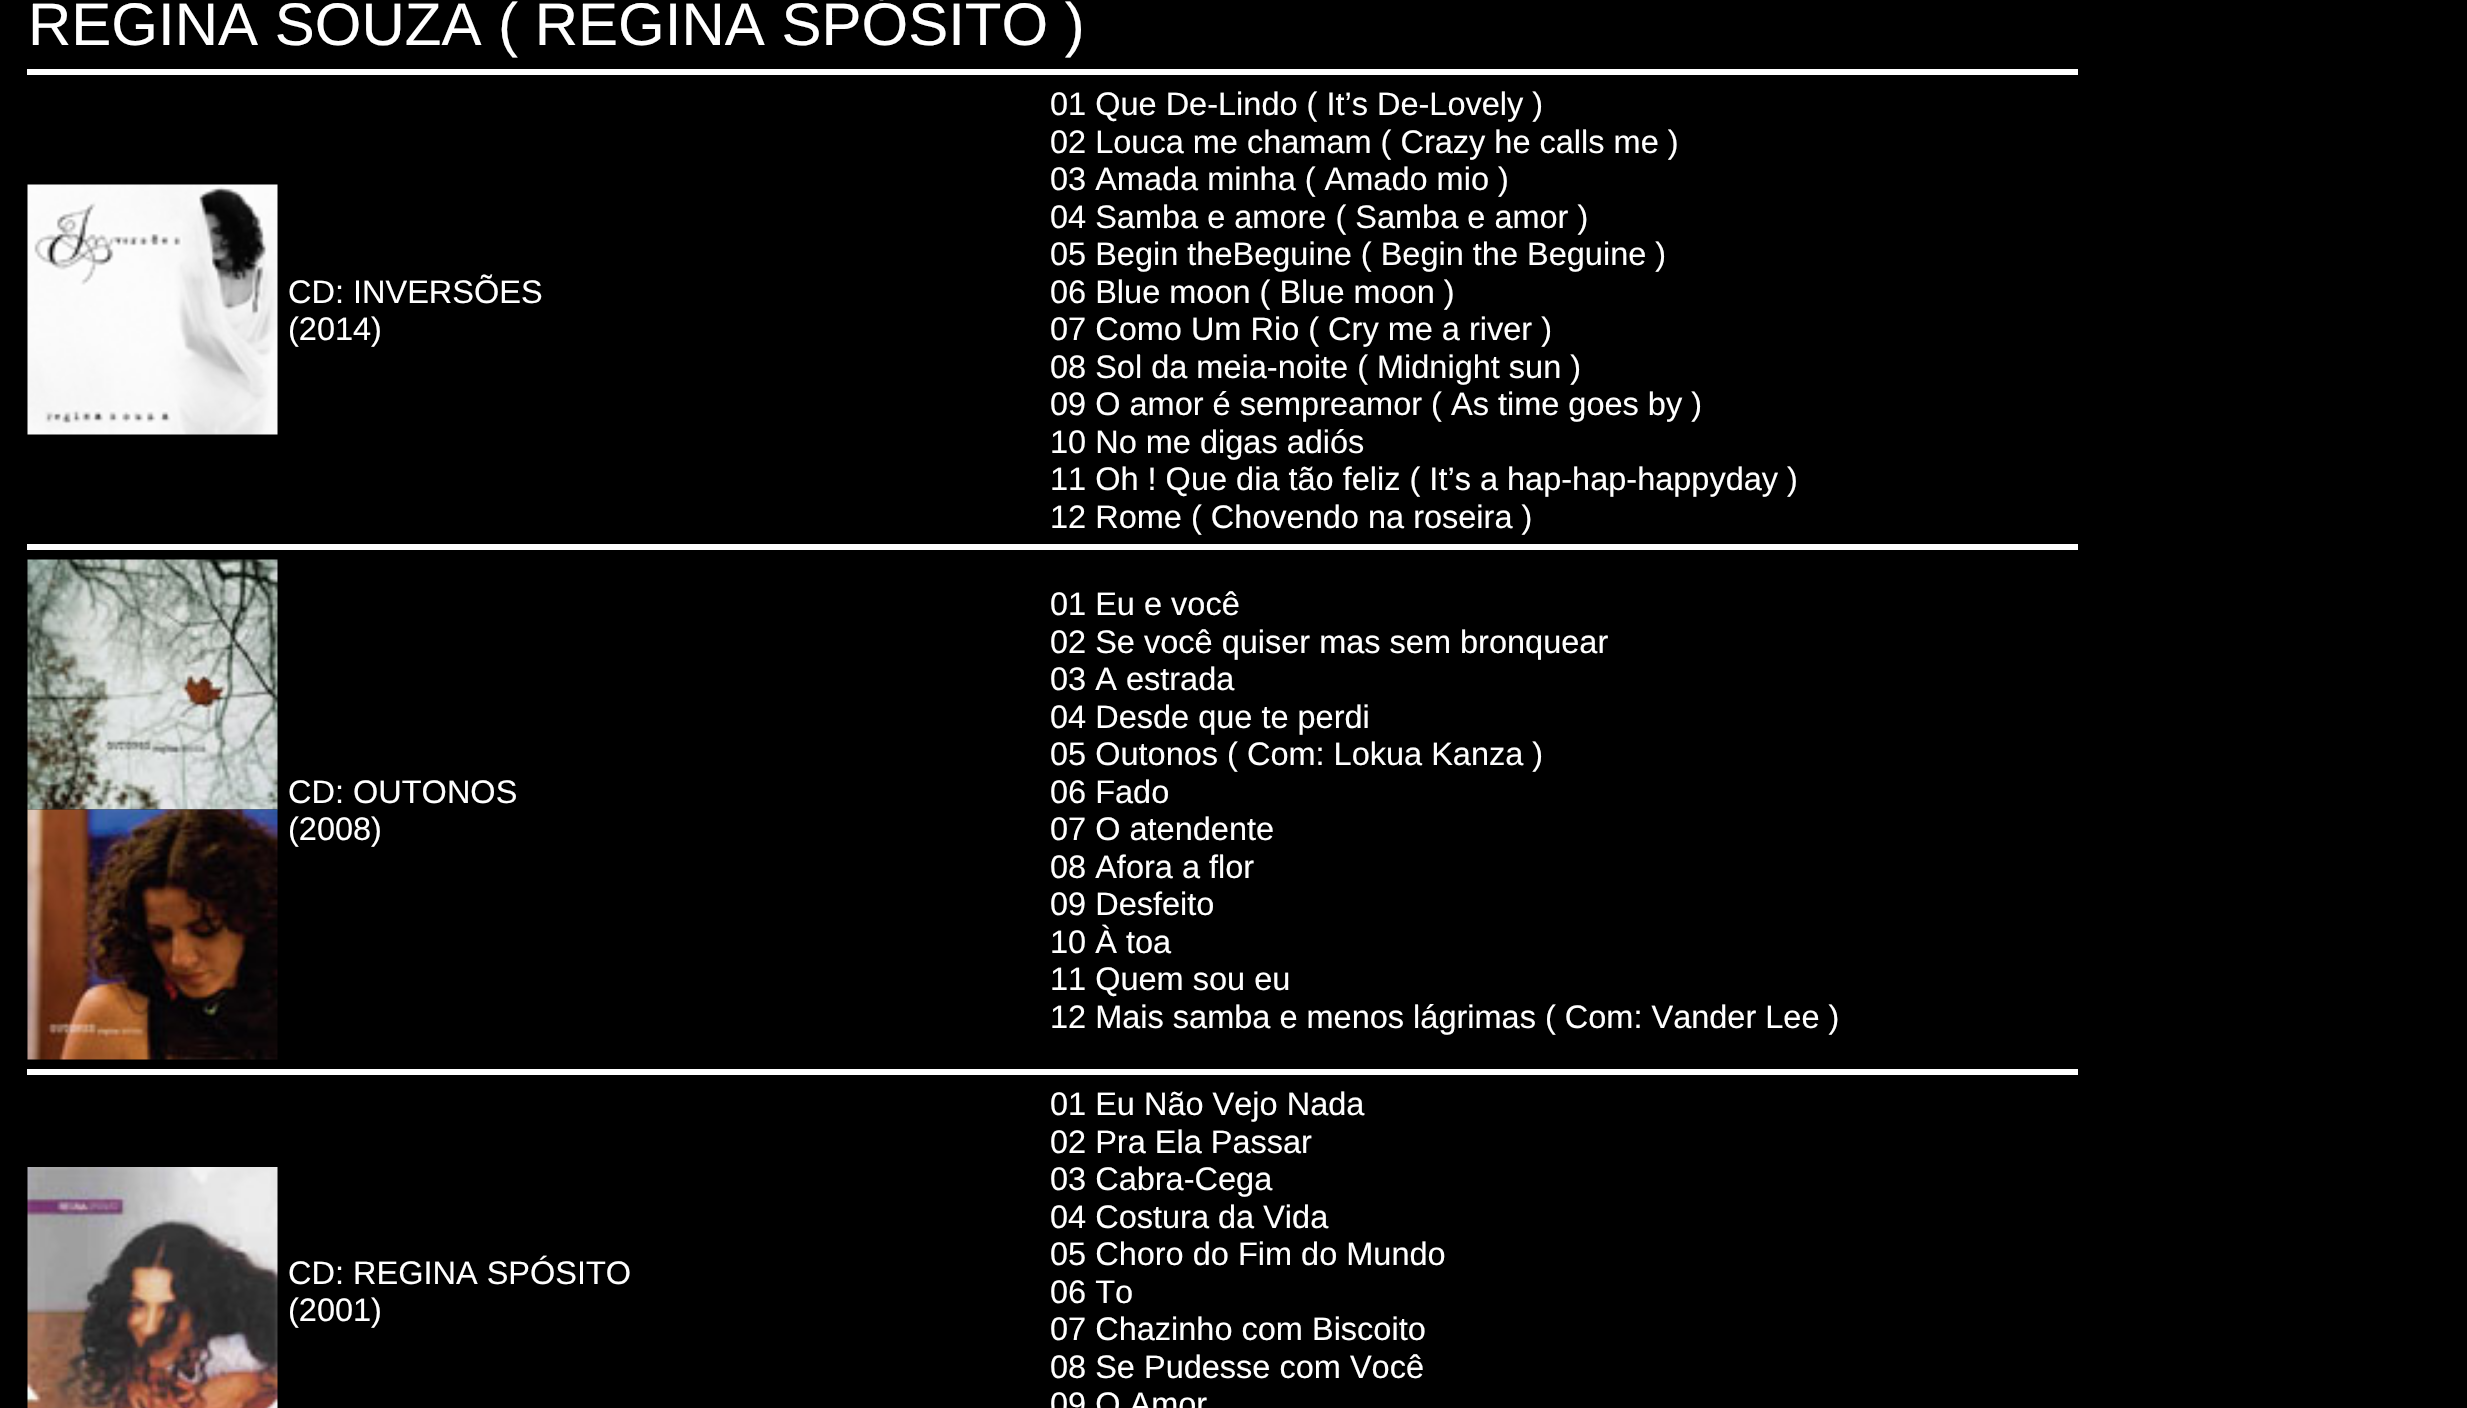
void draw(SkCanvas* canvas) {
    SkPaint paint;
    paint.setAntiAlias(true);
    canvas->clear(0xFF000000);
    SkFont font1(fontMgr->matchFamilyStyle("Liberation Sans", SkFontStyle::Normal()), 60);
    font1.setSubpixel(true);
    paint.setColor(0xFFFFFFFF);
    canvas->drawString("REGINA SOUZA ( REGINA SPÓSITO )", 28, 45, font1, paint);
    canvas->drawRect(SkRect::MakeXYWH(27, 69, 2051, 6), paint);
    canvas->drawImageRect(SkImages::DeferredFromEncodedData(SkData::MakeFromFileName("img1.png")), SkRect::MakeXYWH(27, 184, 251, 251), SkSamplingOptions());
    SkFont font2(fontMgr->matchFamilyStyle("Liberation Sans", SkFontStyle::Normal()), 32.5f);
    font2.setSubpixel(true);
    canvas->drawString("CD: INVERSÕES", 288, 303, font2, paint);
    canvas->drawString("(2014)", 288, 340, font2, paint);
    canvas->drawString("01 Que De-Lindo ( It’s De-Lovely )", 1050, 115, font2, paint);
    canvas->drawString("02 Louca me chamam ( Crazy he calls me )", 1050, 153, font2, paint);
    canvas->drawString("03 Amada minha ( Amado mio )", 1050, 190, font2, paint);
    canvas->drawString("04 Samba e amore ( Samba e amor )", 1050, 228, font2, paint);
    canvas->drawString("05 Begin theBeguine ( Begin the Beguine )", 1050, 265, font2, paint);
    canvas->drawString("06 Blue moon ( Blue moon )", 1050, 303, font2, paint);
    canvas->drawString("07 Como Um Rio ( Cry me a river )", 1050, 340, font2, paint);
    canvas->drawString("08 Sol da meia-noite ( Midnight sun )", 1050, 378, font2, paint);
    canvas->drawString("09 O amor é sempreamor ( As time goes by )", 1050, 415, font2, paint);
    canvas->drawString("10 No me digas adiós", 1050, 453, font2, paint);
    canvas->drawString("11 Oh ! Que dia tão feliz ( It’s a hap-hap-happyday )", 1050, 490, font2, paint);
    canvas->drawString("12 Rome ( Chovendo na roseira )", 1050, 528, font2, paint);
    canvas->drawRect(SkRect::MakeXYWH(27, 544, 2051, 6), paint);
    canvas->drawImageRect(SkImages::DeferredFromEncodedData(SkData::MakeFromFileName("img2.png")), SkRect::MakeXYWH(27, 559, 251, 251), SkSamplingOptions());
    canvas->drawImageRect(SkImages::DeferredFromEncodedData(SkData::MakeFromFileName("img3.png")), SkRect::MakeXYWH(27, 809, 251, 251), SkSamplingOptions());
    canvas->drawString("CD: OUTONOS", 288, 803, font2, paint);
    canvas->drawString("(2008)", 288, 840, font2, paint);
    canvas->drawString("01 Eu e você", 1050, 615, font2, paint);
    canvas->drawString("02 Se você quiser mas sem bronquear", 1050, 653, font2, paint);
    canvas->drawString("03 A estrada", 1050, 690, font2, paint);
    canvas->drawString("04 Desde que te perdi", 1050, 728, font2, paint);
    canvas->drawString("05 Outonos ( Com: Lokua Kanza )", 1050, 765, font2, paint);
    canvas->drawString("06 Fado", 1050, 803, font2, paint);
    canvas->drawString("07 O atendente", 1050, 840, font2, paint);
    canvas->drawString("08 Afora a flor", 1050, 878, font2, paint);
    canvas->drawString("09 Desfeito", 1050, 915, font2, paint);
    canvas->drawString("10 À toa", 1050, 953, font2, paint);
    canvas->drawString("11 Quem sou eu", 1050, 990, font2, paint);
    canvas->drawString("12 Mais samba e menos lágrimas ( Com: Vander Lee )", 1050, 1028, font2, paint);
    canvas->drawRect(SkRect::MakeXYWH(27, 1069, 2051, 6), paint);
    canvas->drawImageRect(SkImages::DeferredFromEncodedData(SkData::MakeFromFileName("img4.png")), SkRect::MakeXYWH(27, 1167, 251, 241), SkSamplingOptions());
    canvas->drawString("CD: REGINA SPÓSITO", 288, 1284, font2, paint);
    canvas->drawString("(2001)", 288, 1321, font2, paint);
    canvas->drawString("01 Eu Não Vejo Nada", 1050, 1115, font2, paint);
    canvas->drawString("02 Pra Ela Passar", 1050, 1153, font2, paint);
    canvas->drawString("03 Cabra-Cega", 1050, 1190, font2, paint);
    canvas->drawString("04 Costura da Vida", 1050, 1228, font2, paint);
    canvas->drawString("05 Choro do Fim do Mundo", 1050, 1265, font2, paint);
    canvas->drawString("06 To", 1050, 1303, font2, paint);
    canvas->drawString("07 Chazinho com Biscoito", 1050, 1340, font2, paint);
    canvas->drawString("08 Se Pudesse com Você", 1050, 1378, font2, paint);
    canvas->drawString("09 O Amor", 1050, 1415, font2, paint);
}
